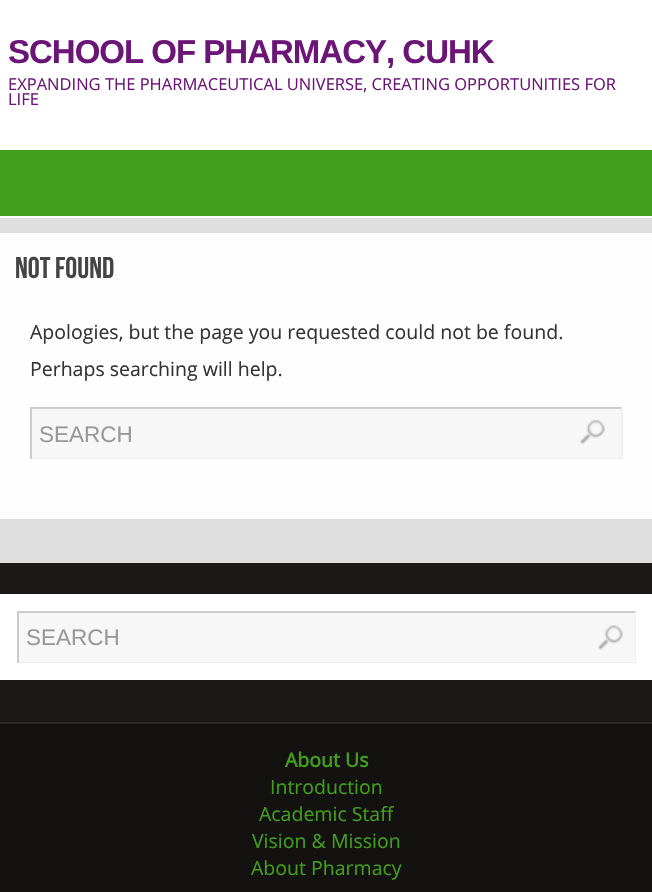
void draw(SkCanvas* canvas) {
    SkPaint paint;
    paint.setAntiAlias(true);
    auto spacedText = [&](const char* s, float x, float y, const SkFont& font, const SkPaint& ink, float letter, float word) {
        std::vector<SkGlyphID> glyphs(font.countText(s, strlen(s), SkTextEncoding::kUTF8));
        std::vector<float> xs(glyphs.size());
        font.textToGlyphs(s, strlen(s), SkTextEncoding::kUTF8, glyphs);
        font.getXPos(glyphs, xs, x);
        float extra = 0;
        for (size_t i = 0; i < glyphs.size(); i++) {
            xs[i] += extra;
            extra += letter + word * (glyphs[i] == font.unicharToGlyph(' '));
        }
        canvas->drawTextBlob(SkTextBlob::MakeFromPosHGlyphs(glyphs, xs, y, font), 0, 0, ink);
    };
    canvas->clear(0xFFDEDEDE);
    paint.setColor(0xFFFFFFFF);
    canvas->drawRect(SkRect::MakeXYWH(0, 0, 652, 218), paint);
    SkFont font1(fontMgr->matchFamilyStyle("Liberation Sans", SkFontStyle::Bold()), 33);
    font1.setSubpixel(true);
    paint.setColor(0xFF6B1576);
    spacedText("SCHOOL OF PHARMACY, CUHK", 8, 63, font1, paint, -1, 0);
    SkFont font2(fontMgr->matchFamilyStyle("Open Sans", SkFontStyle::Normal()), 16.5f);
    font2.setSubpixel(true);
    canvas->drawString("EXPANDING THE PHARMACEUTICAL UNIVERSE, CREATING OPPORTUNITIES FOR", 8, 90, font2, paint);
    canvas->drawString("LIFE", 8, 105, font2, paint);
    paint.setColor(0xFF429F1D);
    canvas->drawRect(SkRect::MakeXYWH(0, 150, 652, 66), paint);
    paint.setColor(0xFFFEFEFE);
    canvas->drawRect(SkRect::MakeXYWH(0, 233, 652, 286), paint);
    SkFont font3(fontMgr->matchFamilyStyle("Bebas Neue", SkFontStyle::Normal()), 30);
    font3.setSubpixel(true);
    paint.setColor(0xFF444444);
    canvas->drawString("Not Found", 15, 278, font3, paint);
    SkFont font4(fontMgr->matchFamilyStyle("Open Sans", SkFontStyle::Normal()), 19.5f);
    font4.setSubpixel(true);
    paint.setColor(0xFF333333);
    canvas->drawString("Apologies, but the page you requested could not be found.", 30, 339, font4, paint);
    canvas->drawString("Perhaps searching will help.", 30, 376, font4, paint);
    paint.setColor(0xFFF7F7F7);
    canvas->drawRect(SkRect::MakeXYWH(32, 409, 589, 49), paint);
    paint.setColor(0xFFCCCCCC);
    canvas->drawRect(SkRect::MakeXYWH(30, 407, 593, 2), paint);
    paint.setColor(0xFFEEEEEE);
    canvas->drawRect(SkRect::MakeXYWH(621, 407, 2, 52), paint);
    canvas->drawRect(SkRect::MakeXYWH(30, 458, 593, 1), paint);
    paint.setColor(0xFFCCCCCC);
    canvas->drawRect(SkRect::MakeXYWH(30, 407, 2, 52), paint);
    SkFont font5(fontMgr->matchFamilyStyle("Liberation Sans", SkFontStyle::Normal()), 22.5f);
    font5.setSubpixel(true);
    paint.setColor(0xFF999999);
    canvas->drawString("SEARCH", 39, 442, font5, paint);
    canvas->drawImageRect(SkImages::DeferredFromEncodedData(SkData::MakeFromFileName("img1.png")), SkRect::MakeXYWH(580, 419, 25, 26), SkSamplingOptions());
    paint.setColor(0xFF1A1917);
    canvas->drawRect(SkRect::MakeXYWH(0, 563, 652, 159), paint);
    paint.setColor(0xFFFFFFFF);
    canvas->drawRect(SkRect::MakeXYWH(0, 594, 652, 86), paint);
    paint.setColor(0xFFF7F7F7);
    canvas->drawRect(SkRect::MakeXYWH(19, 613, 616, 49), paint);
    paint.setColor(0xFFCCCCCC);
    canvas->drawRect(SkRect::MakeXYWH(17, 611, 619, 2), paint);
    paint.setColor(0xFFEEEEEE);
    canvas->drawRect(SkRect::MakeXYWH(635, 611, 1, 52), paint);
    canvas->drawRect(SkRect::MakeXYWH(17, 662, 619, 1), paint);
    paint.setColor(0xFFCCCCCC);
    canvas->drawRect(SkRect::MakeXYWH(17, 611, 2, 52), paint);
    paint.setColor(0xFF999999);
    canvas->drawString("SEARCH", 26, 645, font5, paint);
    canvas->drawImageRect(SkImages::DeferredFromEncodedData(SkData::MakeFromFileName("img2.png")), SkRect::MakeXYWH(598, 625, 25, 25), SkSamplingOptions());
    paint.setColor(0xFF131211);
    canvas->drawRect(SkRect::MakeXYWH(0, 724, 652, 168), paint);
    paint.setColor(0xFF2B2A29);
    canvas->drawRect(SkRect::MakeXYWH(0, 722, 652, 2), paint);
    SkFont font6(fontMgr->matchFamilyStyle("Open Sans", SkFontStyle::Bold()), 19.5f);
    font6.setSubpixel(true);
    paint.setColor(0xFF429F1D);
    canvas->drawString("About Us", 285, 767, font6, paint);
    canvas->drawString("Introduction", 270, 794, font4, paint);
    canvas->drawString("Academic Staff", 259, 821, font4, paint);
    canvas->drawString("Vision & Mission", 252, 848, font4, paint);
    canvas->drawString("About Pharmacy", 251, 875, font4, paint);
}
